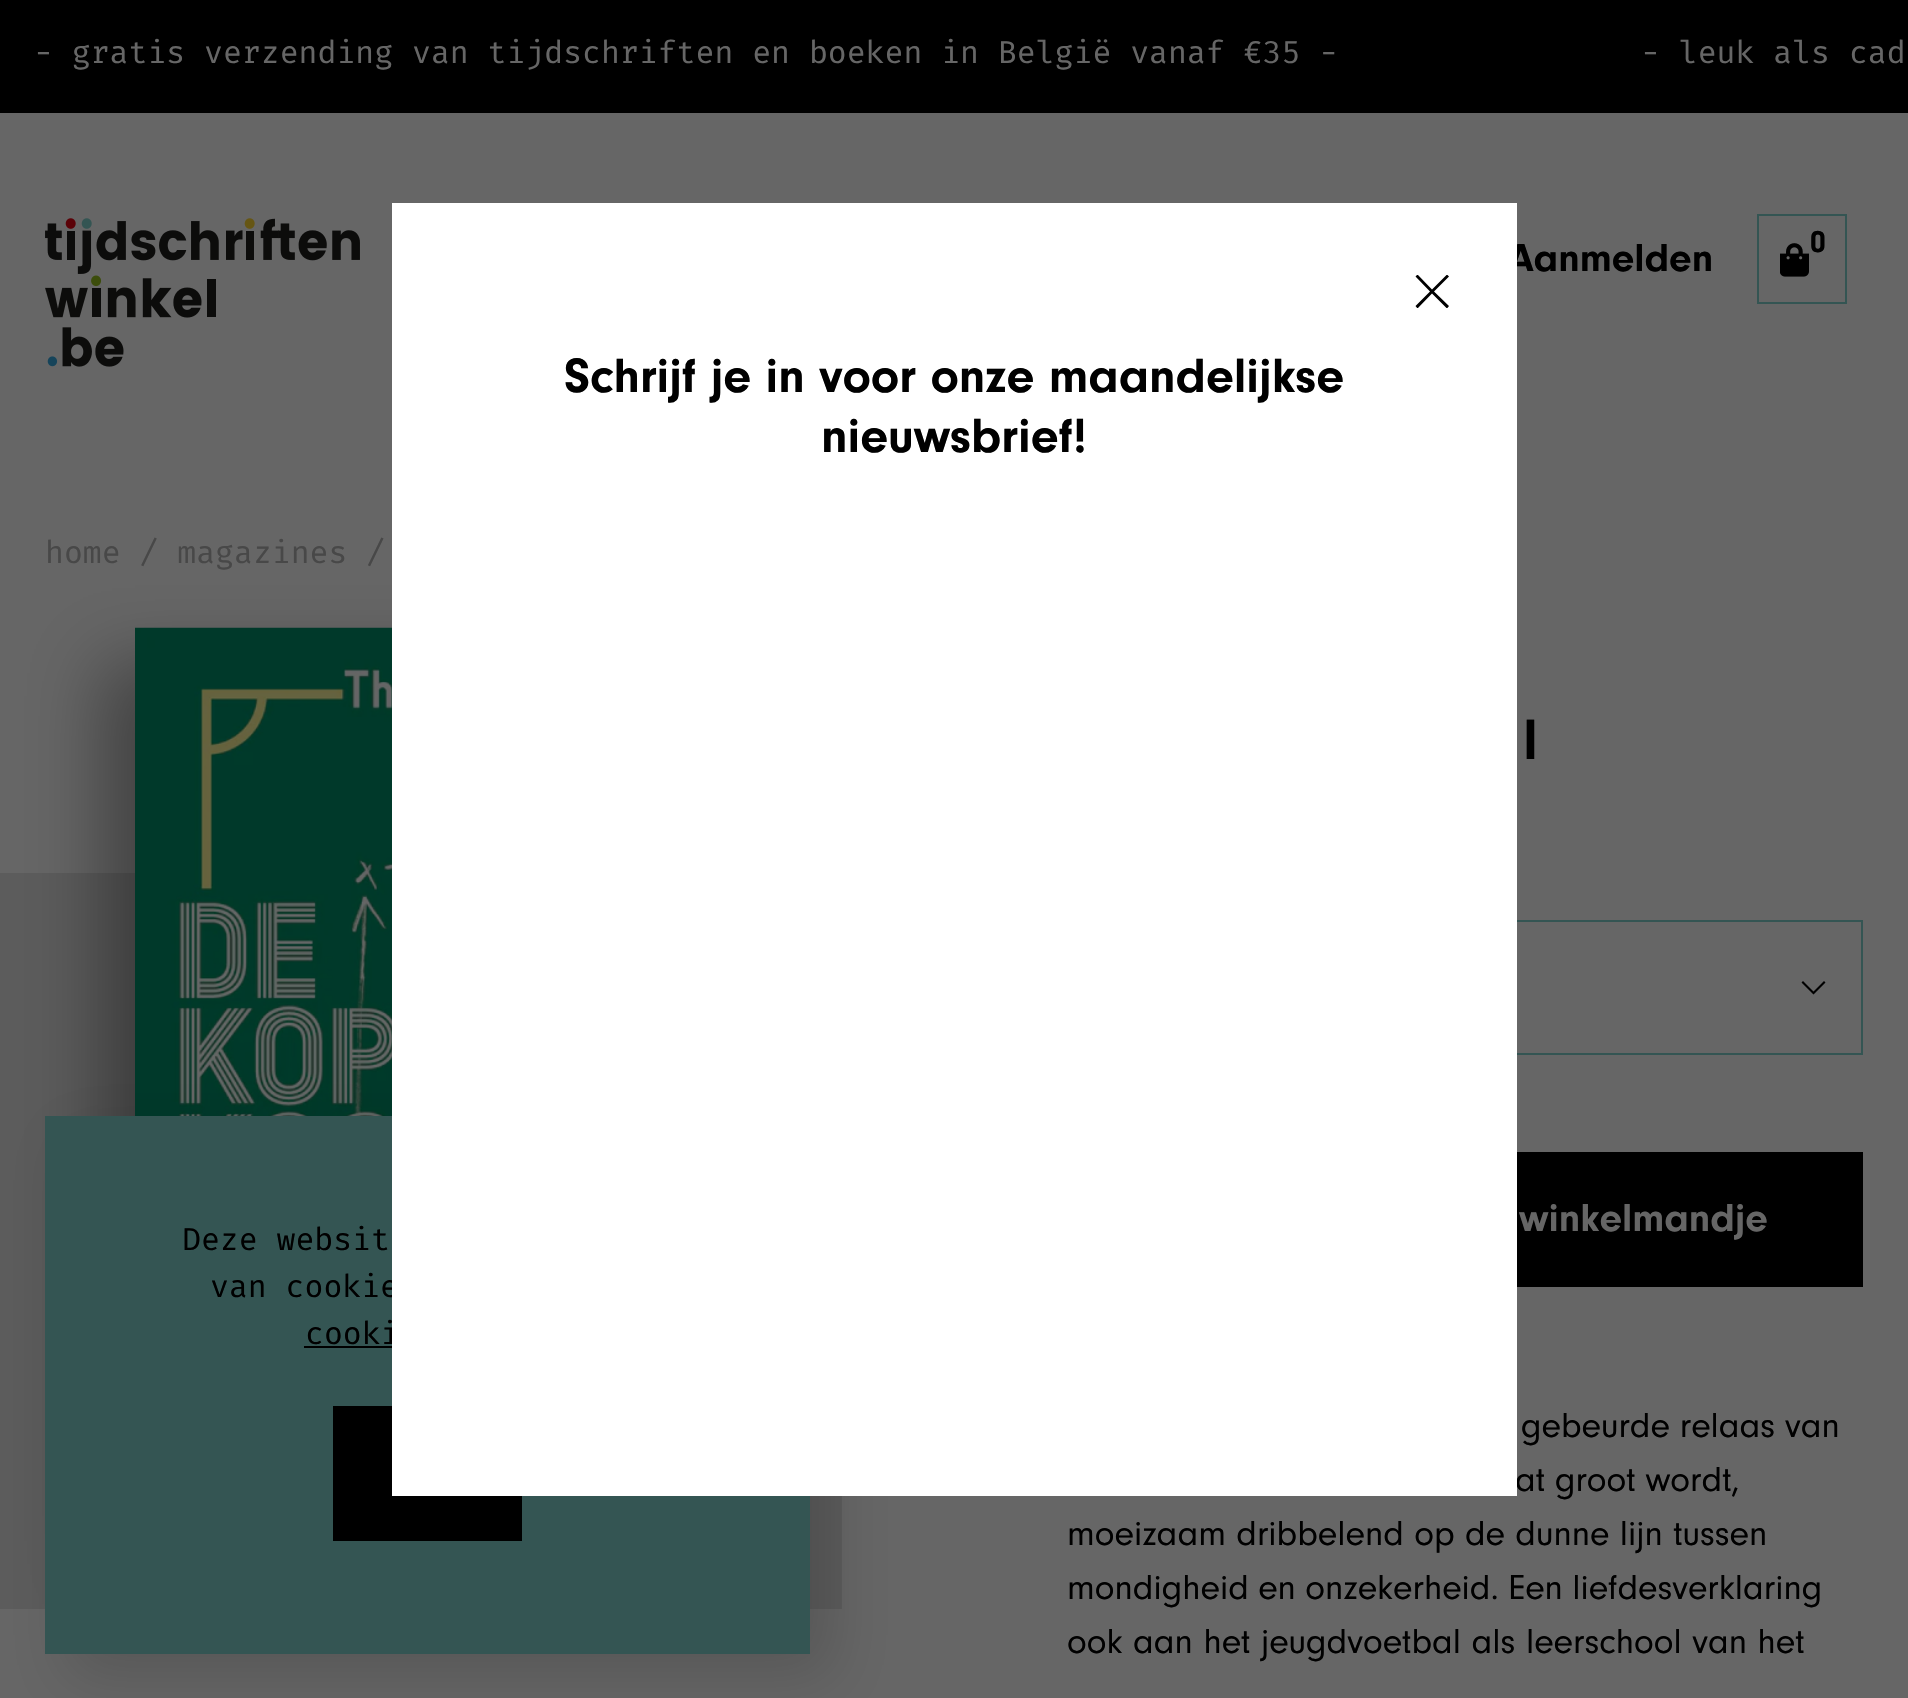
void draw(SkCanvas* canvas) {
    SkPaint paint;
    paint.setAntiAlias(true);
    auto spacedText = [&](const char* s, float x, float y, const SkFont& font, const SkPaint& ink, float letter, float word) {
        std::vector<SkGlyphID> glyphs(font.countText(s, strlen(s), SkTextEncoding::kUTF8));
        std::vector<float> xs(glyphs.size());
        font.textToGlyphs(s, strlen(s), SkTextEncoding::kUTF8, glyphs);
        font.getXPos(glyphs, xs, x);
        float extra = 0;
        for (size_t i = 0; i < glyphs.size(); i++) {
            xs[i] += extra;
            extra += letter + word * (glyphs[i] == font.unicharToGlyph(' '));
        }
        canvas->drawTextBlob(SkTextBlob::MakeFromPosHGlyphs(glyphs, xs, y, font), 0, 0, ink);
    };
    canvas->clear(0xFF666666);
    paint.setColor(0xFF000000);
    canvas->drawRect(SkRect::MakeXYWH(0, 0, 1908, 113), paint);
    SkFont font1(fontMgr->matchFamilyStyle("Fira Mono", SkFontStyle::Normal()), 31.5f);
    font1.setSubpixel(true);
    paint.setColor(0xFF666666);
    canvas->drawString("- gratis verzending van tijdschriften en boeken in België vanaf €35 -", 34, 63, font1, paint);
    canvas->drawString("- leuk als cad", 1641, 63, font1, paint);
    canvas->drawImageRect(SkImages::DeferredFromEncodedData(SkData::MakeFromFileName("img1.png")), SkRect::MakeXYWH(45, 218, 315, 149), SkSamplingOptions());
    paint.setStyle(SkPaint::kStroke_Style);
    paint.setStrokeWidth(2);
    paint.setColor(0xFF345553);
    canvas->drawRect(SkRect::MakeXYWH(1758, 215, 88, 88), paint);
    canvas->drawImageRect(SkImages::DeferredFromEncodedData(SkData::MakeFromFileName("img2.png")), SkRect::MakeXYWH(1780, 243, 29, 34), SkSamplingOptions());
    SkFont font2(fontMgr->matchFamilyStyle("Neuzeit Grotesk", SkFontStyle::Bold()), 31.5f);
    font2.setSubpixel(true);
    paint.setStyle(SkPaint::kFill_Style);
    paint.setColor(0xFF000000);
    canvas->drawString("0", 1810, 252, font2, paint);
    SkFont font3(fontMgr->matchFamilyStyle("Neuzeit Grotesk", SkFontStyle::Bold()), 40.5f);
    font3.setSubpixel(true);
    canvas->drawString("Aanmelden", 1508, 271, font3, paint);
    paint.setColor(0xFF5C5C5C);
    canvas->drawRect(SkRect::MakeXYWH(0, 873, 842, 736), paint);
    paint.setColor(0x59000000);
    paint.setMaskFilter(SkMaskFilter::MakeBlur(kNormal_SkBlurStyle, 34));
    canvas->drawRect(SkRect::MakeXYWH(101, 662, 617, 913), paint);
    paint.setMaskFilter(nullptr);
    paint.setColor(0xFF000000);
    canvas->drawPath(SkPathBuilder().moveTo(1813.5f, 994.5f).lineTo(1801.5f, 982.5f).lineTo(1803, 981).lineTo(1813.5f, 991.5f).lineTo(1824, 981).lineTo(1825.5f, 982.5f).close().detach(), paint);
    paint.setStyle(SkPaint::kStroke_Style);
    paint.setColor(0xFF345553);
    canvas->drawRect(SkRect::MakeXYWH(1068, 921, 794, 133), paint);
    SkFont font4(fontMgr->matchFamilyStyle("Neuzeit Grotesk", SkFontStyle::Normal()), 36);
    font4.setSubpixel(true);
    paint.setStyle(SkPaint::kFill_Style);
    paint.setColor(0xFF000000);
    spacedText("at groot wordt,", 1515, 1491, font4, paint, 0, -1);
    canvas->drawImageRect(SkImages::DeferredFromEncodedData(SkData::MakeFromFileName("img3.png")), SkRect::MakeXYWH(135, 627, 257, 489), SkSamplingOptions());
    paint.setColor(0x26000000);
    paint.setMaskFilter(SkMaskFilter::MakeBlur(kNormal_SkBlurStyle, 28));
    canvas->drawRect(SkRect::MakeXYWH(68, 1139, 765, 537), paint);
    paint.setMaskFilter(nullptr);
    paint.setColor(0xFF345553);
    canvas->drawRect(SkRect::MakeXYWH(45, 1116, 765, 538), paint);
    paint.setColor(0xFF000000);
    canvas->drawString("van cookie", 210, 1297, font1, paint);
    canvas->drawString("cooki", 305, 1344, font1, paint);
    canvas->drawRect(SkRect::MakeXYWH(333, 1406, 189, 135), paint);
    paint.setColor(0xFFFFFFFF);
    canvas->drawRect(SkRect::MakeXYWH(392, 203, 1125, 1293), paint);
    canvas->save();
    canvas->clipRect(SkRect::MakeXYWH(1415, 275, 34, 33));
    paint.setColor(0xFF000000);
    canvas->drawPath(SkPathBuilder().moveTo(1449, 276.5f).lineTo(1447, 274.5f).lineTo(1432, 289.5f).lineTo(1417.5f, 274.5f).lineTo(1415.5f, 276.5f).lineTo(1430, 291.5f).lineTo(1415.5f, 306).lineTo(1417.5f, 308.5f).lineTo(1432, 293.5f).lineTo(1447, 308.5f).lineTo(1449, 306).lineTo(1434, 291.5f).close().detach(), paint);
    canvas->restore();
    SkFont font5(fontMgr->matchFamilyStyle("Neuzeit Grotesk", SkFontStyle::Bold()), 50);
    font5.setSubpixel(true);
    spacedText("Schrijf je in voor onze maandelijkse", 564, 392, font5, paint, 0, -0.5f);
    canvas->drawString("nieuwsbrief!", 821, 452, font5, paint);
    paint.setColor(0xFF484848);
    canvas->drawString("home / magazines /", 45, 563, font1, paint);
    SkFont font6(fontMgr->matchFamilyStyle("Neuzeit Grotesk", SkFontStyle::Bold()), 59);
    font6.setSubpixel(true);
    paint.setColor(0xFF000000);
    spacedText("l", 1523, 759, font6, paint, 0, -2);
    canvas->drawRect(SkRect::MakeXYWH(1517, 1152, 346, 135), paint);
    paint.setColor(0xFF666666);
    canvas->drawString("winkelmandje", 1519, 1231, font3, paint);
    paint.setColor(0xFF000000);
    spacedText("gebeurde relaas van", 1521, 1437, font4, paint, 0, -1);
    spacedText("moeizaam dribbelend op de dunne lijn tussen", 1067, 1545, font4, paint, 0, -0.5f);
    spacedText("mondigheid en onzekerheid. Een liefdesverklaring", 1067, 1599, font4, paint, 0, -1.5f);
    spacedText("ook aan het jeugdvoetbal als leerschool van het", 1067, 1653, font4, paint, 0, -0.25f);
    canvas->drawString("Deze websit", 182, 1250, font1, paint);
    canvas->drawRect(SkRect::MakeXYWH(304, 1346, 88, 2), paint);
}
